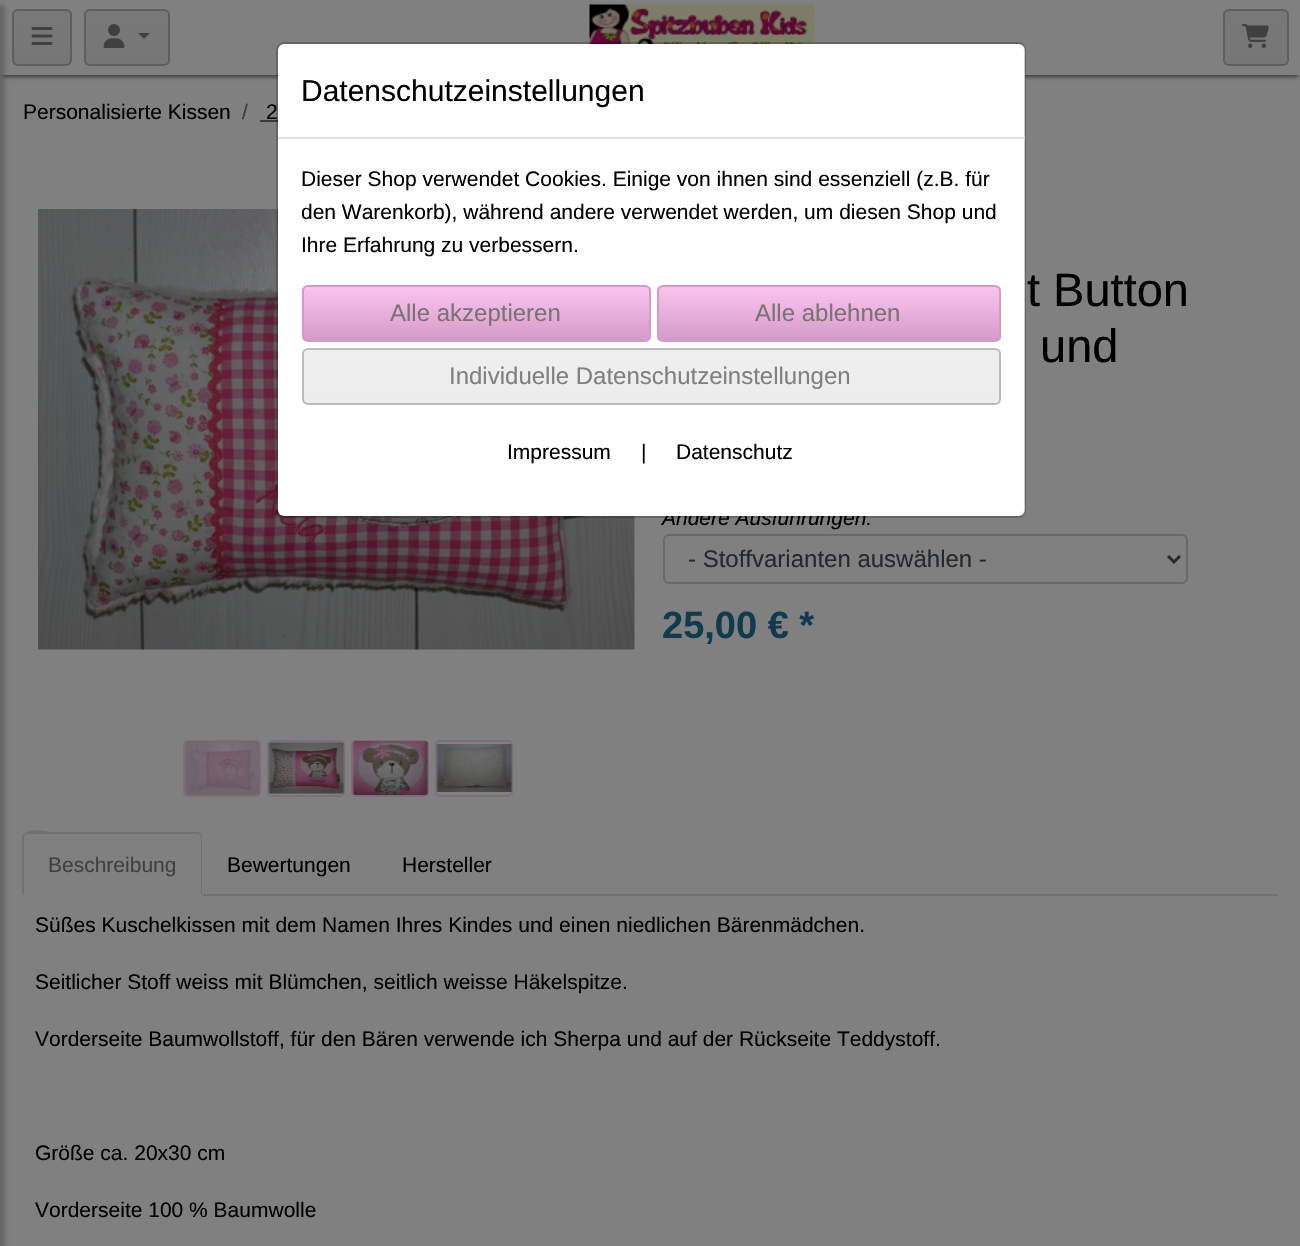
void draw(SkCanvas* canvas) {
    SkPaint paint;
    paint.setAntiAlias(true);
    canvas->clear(0xFF808080);
    paint.setColor(0xFF3C3C3C);
    paint.setMaskFilter(SkMaskFilter::MakeBlur(kNormal_SkBlurStyle, 2));
    canvas->drawRect(SkRect::MakeXYWH(3, 8, 1295, 69), paint);
    paint.setMaskFilter(nullptr);
    paint.setColor(0xFF808080);
    canvas->drawRect(SkRect::MakeXYWH(0, 4, 1300, 71), paint);
    canvas->drawImageRect(SkImages::DeferredFromEncodedData(SkData::MakeFromFileName("img5.png")), SkRect::MakeXYWH(38, 209, 597, 441), SkSamplingOptions());
    SkFont font1(fontMgr->matchFamilyStyle("Liberation Sans", SkFontStyle::Italic()), 21);
    font1.setSubpixel(true);
    paint.setColor(0xFF000000);
    canvas->drawString("Andere Ausführungen:", 662, 525, font1, paint);
    paint.setColor(0xFFFFFFFF);
    canvas->drawRoundRect(SkRect::MakeXYWH(278, 44, 747, 472), 6, 6, paint);
    canvas->drawImageRect(SkImages::DeferredFromEncodedData(SkData::MakeFromFileName("img3.png")), SkRect::MakeXYWH(589, 4, 226, 40), SkSamplingOptions());
    SkFont font2(fontMgr->matchFamilyStyle("Liberation Sans", SkFontStyle::Normal()), 21);
    font2.setSubpixel(true);
    paint.setColor(0xFF000000);
    canvas->drawString("2", 266, 119, font2, paint);
    paint.setColor(0xFF363B3F);
    canvas->drawRect(SkRect::MakeXYWH(260, 120, 18, 2), paint);
    paint.setStyle(SkPaint::kStroke_Style);
    paint.setStrokeWidth(2);
    paint.setColor(0x33000000);
    canvas->drawRoundRect(SkRect::MakeXYWH(277, 43, 748, 474), 7, 7, paint);
    paint.setStyle(SkPaint::kFill_Style);
    paint.setColor(0xFFDEE2E6);
    canvas->drawRect(SkRect::MakeXYWH(278, 137, 747, 2), paint);
    SkFont font3(fontMgr->matchFamilyStyle("Liberation Sans", SkFontStyle::Normal()), 30);
    font3.setSubpixel(true);
    paint.setColor(0xFF000000);
    canvas->drawString("Datenschutzeinstellungen", 301, 101, font3, paint);
    canvas->drawString("Dieser Shop verwendet Cookies. Einige von ihnen sind essenziell (z.B. für", 301, 186, font2, paint);
    canvas->drawString("den Warenkorb), während andere verwendet werden, um diesen Shop und", 301, 219, font2, paint);
    canvas->drawString("Ihre Erfahrung zu verbessern.", 301, 252, font2, paint);
    canvas->save();
    canvas->clipPath(SkPathBuilder().moveTo(308, 285).lineTo(645, 285).cubicTo(648.5f, 285, 651, 287.5f, 651, 291).lineTo(651, 336).cubicTo(651, 339.5f, 648.5f, 342, 645, 342).lineTo(308, 342).cubicTo(304.5f, 342, 302, 339.5f, 302, 336).lineTo(302, 291).cubicTo(302, 287.5f, 304.5f, 285, 308, 285).close().detach(), true);
    {
        const SkColor colors[] = {0xFFFBC4EF, 0xFFD49AC8};
        const float stops[] = {0, 1};
        const SkPoint ends[] = {{476, 287}, {476, 341}};
        paint.setShader(SkGradientShader::MakeLinear(ends, colors, stops, 2, SkTileMode::kClamp));
        paint.setAlpha(255);
    }
    canvas->drawRect(SkRect::MakeXYWH(302, 287, 349, 54), paint);
    canvas->restore();
    paint.setStyle(SkPaint::kStroke_Style);
    paint.setShader(nullptr);
    paint.setColor(0xFFD49AC8);
    canvas->drawRoundRect(SkRect::MakeXYWH(303, 286, 347, 55), 5, 5, paint);
    SkFont font4(fontMgr->matchFamilyStyle("Liberation Sans", SkFontStyle::Normal()), 24);
    font4.setSubpixel(true);
    paint.setStyle(SkPaint::kFill_Style);
    paint.setColor(0xFF7A7373);
    canvas->drawString("Alle akzeptieren", 390, 321, font4, paint);
    canvas->save();
    canvas->clipPath(SkPathBuilder().moveTo(663, 285).lineTo(995, 285).cubicTo(998.5f, 285, 1001, 287.5f, 1001, 291).lineTo(1001, 336).cubicTo(1001, 339.5f, 998.5f, 342, 995, 342).lineTo(663, 342).cubicTo(659.5f, 342, 657, 339.5f, 657, 336).lineTo(657, 291).cubicTo(657, 287.5f, 659.5f, 285, 663, 285).close().detach(), true);
    {
        const SkColor colors[] = {0xFFFBC4EF, 0xFFD49AC8};
        const float stops[] = {0, 1};
        const SkPoint ends[] = {{829, 287}, {829, 341}};
        paint.setShader(SkGradientShader::MakeLinear(ends, colors, stops, 2, SkTileMode::kClamp));
        paint.setAlpha(255);
    }
    canvas->drawRect(SkRect::MakeXYWH(657, 287, 344, 54), paint);
    canvas->restore();
    paint.setStyle(SkPaint::kStroke_Style);
    paint.setShader(nullptr);
    paint.setColor(0xFFD49AC8);
    canvas->drawRoundRect(SkRect::MakeXYWH(658, 286, 342, 55), 5, 5, paint);
    paint.setStyle(SkPaint::kFill_Style);
    paint.setColor(0xFF7A7373);
    canvas->drawString("Alle ablehnen", 755, 321, font4, paint);
    canvas->save();
    canvas->clipPath(SkPathBuilder().moveTo(308, 348).lineTo(995, 348).cubicTo(998.5f, 348, 1001, 350.5f, 1001, 354).lineTo(1001, 399).cubicTo(1001, 402.5f, 998.5f, 405, 995, 405).lineTo(308, 405).cubicTo(304.5f, 405, 302, 402.5f, 302, 399).lineTo(302, 354).cubicTo(302, 350.5f, 304.5f, 348, 308, 348).close().detach(), true);
    {
        const SkColor colors[] = {0xFFEFEFEF, 0xFFECECEC};
        const float stops[] = {0, 1};
        const SkPoint ends[] = {{651, 349}, {651, 404}};
        paint.setShader(SkGradientShader::MakeLinear(ends, colors, stops, 2, SkTileMode::kClamp));
        paint.setAlpha(255);
    }
    canvas->drawRect(SkRect::MakeXYWH(302, 350, 699, 54), paint);
    canvas->restore();
    paint.setStyle(SkPaint::kStroke_Style);
    paint.setShader(nullptr);
    paint.setColor(0xFFBCBCBC);
    canvas->drawRoundRect(SkRect::MakeXYWH(303, 349, 697, 55), 5, 5, paint);
    paint.setStyle(SkPaint::kFill_Style);
    paint.setColor(0xFF808080);
    canvas->drawString("Individuelle Datenschutzeinstellungen", 449, 384, font4, paint);
    paint.setColor(0xFF000000);
    canvas->drawString("Impressum", 507, 459, font2, paint);
    canvas->drawString("|", 641, 459, font2, paint);
    canvas->drawString("Datenschutz", 676, 459, font2, paint);
    paint.setColor(0x33000000);
    paint.setMaskFilter(SkMaskFilter::MakeBlur(kNormal_SkBlurStyle, 2));
    canvas->drawRect(SkRect::MakeXYWH(-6, 5, 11, 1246), paint);
    paint.setMaskFilter(nullptr);
    canvas->save();
    canvas->clipPath(SkPathBuilder().moveTo(18, 9).lineTo(66, 9).cubicTo(69.5f, 9, 72, 11.5f, 72, 15).lineTo(72, 60).cubicTo(72, 63.5f, 69.5f, 66, 66, 66).lineTo(18, 66).cubicTo(14.5f, 66, 12, 63.5f, 12, 60).lineTo(12, 15).cubicTo(12, 11.5f, 14.5f, 9, 18, 9).close().detach(), true);
    {
        const SkColor colors[] = {0xFF787878, 0xFF767676};
        const float stops[] = {0, 1};
        const SkPoint ends[] = {{42, 10}, {42, 65}};
        paint.setShader(SkGradientShader::MakeLinear(ends, colors, stops, 2, SkTileMode::kClamp));
        paint.setAlpha(255);
    }
    canvas->drawRect(SkRect::MakeXYWH(12, 11, 60, 54), paint);
    canvas->restore();
    paint.setStyle(SkPaint::kStroke_Style);
    paint.setShader(nullptr);
    paint.setColor(0xFF5E5E5E);
    canvas->drawRoundRect(SkRect::MakeXYWH(13, 10, 58, 55), 5, 5, paint);
    canvas->drawImageRect(SkImages::DeferredFromEncodedData(SkData::MakeFromFileName("img1.png")), SkRect::MakeXYWH(31, 27, 22, 18), SkSamplingOptions());
    canvas->save();
    canvas->clipPath(SkPathBuilder().moveTo(90, 9).lineTo(164, 9).cubicTo(167.5f, 9, 170, 11.5f, 170, 15).lineTo(170, 60).cubicTo(170, 63.5f, 167.5f, 66, 164, 66).lineTo(90, 66).cubicTo(86.5f, 66, 84, 63.5f, 84, 60).lineTo(84, 15).cubicTo(84, 11.5f, 86.5f, 9, 90, 9).close().detach(), true);
    paint.setStyle(SkPaint::kFill_Style);
    {
        const SkColor colors[] = {0xFF787878, 0xFF767676};
        const float stops[] = {0, 1};
        const SkPoint ends[] = {{127, 10}, {127, 65}};
        paint.setShader(SkGradientShader::MakeLinear(ends, colors, stops, 2, SkTileMode::kClamp));
        paint.setAlpha(255);
    }
    canvas->drawRect(SkRect::MakeXYWH(84, 11, 86, 54), paint);
    canvas->restore();
    paint.setStyle(SkPaint::kStroke_Style);
    paint.setShader(nullptr);
    paint.setColor(0xFF5E5E5E);
    canvas->drawRoundRect(SkRect::MakeXYWH(85, 10, 84, 55), 5, 5, paint);
    canvas->drawImageRect(SkImages::DeferredFromEncodedData(SkData::MakeFromFileName("img2.png")), SkRect::MakeXYWH(103, 24, 22, 24), SkSamplingOptions());
    paint.setStyle(SkPaint::kFill_Style);
    paint.setColor(0xFF404040);
    canvas->drawPath(SkPathBuilder().moveTo(138, 33).lineTo(150, 33).lineTo(144, 39).close().detach(), paint);
    canvas->save();
    canvas->clipPath(SkPathBuilder().moveTo(1229, 9).lineTo(1283, 9).cubicTo(1286.5f, 9, 1289, 11.5f, 1289, 15).lineTo(1289, 60).cubicTo(1289, 63.5f, 1286.5f, 66, 1283, 66).lineTo(1229, 66).cubicTo(1225.5f, 66, 1223, 63.5f, 1223, 60).lineTo(1223, 15).cubicTo(1223, 11.5f, 1225.5f, 9, 1229, 9).close().detach(), true);
    {
        const SkColor colors[] = {0xFF787878, 0xFF767676};
        const float stops[] = {0, 1};
        const SkPoint ends[] = {{1256, 10}, {1256, 65}};
        paint.setShader(SkGradientShader::MakeLinear(ends, colors, stops, 2, SkTileMode::kClamp));
        paint.setAlpha(255);
    }
    canvas->drawRect(SkRect::MakeXYWH(1223, 11, 66, 54), paint);
    canvas->restore();
    paint.setStyle(SkPaint::kStroke_Style);
    paint.setShader(nullptr);
    paint.setColor(0xFF5E5E5E);
    canvas->drawRoundRect(SkRect::MakeXYWH(1224, 10, 64, 55), 5, 5, paint);
    canvas->drawImageRect(SkImages::DeferredFromEncodedData(SkData::MakeFromFileName("img4.png")), SkRect::MakeXYWH(1242, 24, 27, 24), SkSamplingOptions());
    paint.setStyle(SkPaint::kFill_Style);
    paint.setColor(0xFF000000);
    canvas->drawString("Personalisierte Kissen", 23, 119, font2, paint);
    paint.setColor(0xFF363B3F);
    canvas->drawString("/", 242, 119, font2, paint);
    paint.setColor(0xFF7E6D7B);
    canvas->drawRoundRect(SkRect::MakeXYWH(184, 741, 76, 55), 4, 4, paint);
    paint.setStyle(SkPaint::kStroke_Style);
    canvas->drawRoundRect(SkRect::MakeXYWH(184, 741, 76, 55), 4, 4, paint);
    canvas->drawImageRect(SkImages::DeferredFromEncodedData(SkData::MakeFromFileName("img6.png")), SkRect::MakeXYWH(184, 741, 76, 54), SkSamplingOptions());
    canvas->drawRoundRect(SkRect::MakeXYWH(268, 741, 76, 55), 4, 4, paint);
    canvas->drawImageRect(SkImages::DeferredFromEncodedData(SkData::MakeFromFileName("img7.png")), SkRect::MakeXYWH(268, 742, 77, 52), SkSamplingOptions());
    canvas->drawRoundRect(SkRect::MakeXYWH(352, 741, 76, 55), 4, 4, paint);
    canvas->drawImageRect(SkImages::DeferredFromEncodedData(SkData::MakeFromFileName("img8.png")), SkRect::MakeXYWH(352, 741, 77, 54), SkSamplingOptions());
    canvas->drawRoundRect(SkRect::MakeXYWH(436, 741, 76, 55), 4, 4, paint);
    canvas->drawImageRect(SkImages::DeferredFromEncodedData(SkData::MakeFromFileName("img9.png")), SkRect::MakeXYWH(436, 744, 77, 48), SkSamplingOptions());
    SkFont font5(fontMgr->matchFamilyStyle("Liberation Sans", SkFontStyle::Normal()), 47);
    font5.setSubpixel(true);
    paint.setStyle(SkPaint::kFill_Style);
    paint.setColor(0xFF000000);
    canvas->drawString("t Button", 1027, 306, font5, paint);
    canvas->drawString("und", 1040, 362, font5, paint);
    paint.setStyle(SkPaint::kStroke_Style);
    paint.setColor(0xFF676A6D);
    canvas->drawRoundRect(SkRect::MakeXYWH(664, 535, 523, 48), 5, 5, paint);
    paint.setStrokeWidth(3);
    paint.setColor(0xFF25282C);
    canvas->drawPath(SkPathBuilder().moveTo(1168, 556).lineTo(1174, 562).lineTo(1180, 556).detach(), paint);
    canvas->save();
    canvas->clipRect(SkRect::MakeXYWH(689, 545, 456, 28));
    paint.setStyle(SkPaint::kFill_Style);
    canvas->drawString("- Stoffvarianten auswählen -", 688, 567, font4, paint);
    canvas->restore();
    SkFont font6(fontMgr->matchFamilyStyle("Liberation Sans", SkFontStyle::Bold()), 38);
    font6.setSubpixel(true);
    paint.setColor(0xFF103A4D);
    canvas->drawString("25,00 € *", 662, 638, font6, paint);
    paint.setColor(0xFF6F7173);
    canvas->drawRect(SkRect::MakeXYWH(203, 894, 1075, 2), paint);
    canvas->drawPath(SkPathBuilder().moveTo(28, 834).lineTo(25, 835).lineTo(24, 834).cubicTo(31, 827, 44, 832, 55, 832).lineTo(199, 832).lineTo(201, 834).lineTo(200, 835).cubicTo(199, 835, 198, 834, 196, 834).close().detach(), paint);
    canvas->drawPath(SkPathBuilder().moveTo(201, 834).cubicTo(202, 835, 202, 837, 202, 838).lineTo(202, 895).lineTo(201, 894).lineTo(201, 837).lineTo(200, 835).close().detach(), paint);
    paint.setColor(0xFF808080);
    canvas->drawPath(SkPathBuilder().moveTo(202, 895).lineTo(202, 896).lineTo(22, 896).lineTo(24, 894).lineTo(201, 894).close().detach(), paint);
    paint.setColor(0xFF6F7173);
    canvas->drawPath(SkPathBuilder().moveTo(22, 896).lineTo(22, 836).lineTo(24, 834).lineTo(25, 835).lineTo(24, 838).lineTo(24, 894).close().detach(), paint);
    paint.setColor(0xFF404040);
    canvas->drawString("Beschreibung", 48, 872, font2, paint);
    paint.setColor(0xFF000000);
    canvas->drawString("Bewertungen", 227, 872, font2, paint);
    canvas->drawString("Hersteller", 402, 872, font2, paint);
    canvas->drawString("Süßes Kuschelkissen mit dem Namen Ihres Kindes und einen niedlichen Bärenmädchen.", 35, 932, font2, paint);
    canvas->drawString("Seitlicher Stoff weiss mit Blümchen, seitlich weisse Häkelspitze.", 35, 989, font2, paint);
    canvas->drawString("Vorderseite Baumwollstoff, für den Bären verwende ich Sherpa und auf der Rückseite Teddystoff.", 35, 1046, font2, paint);
    canvas->drawString("Größe ca. 20x30 cm", 35, 1160, font2, paint);
    canvas->drawString("Vorderseite 100 % Baumwolle", 35, 1217, font2, paint);
}
